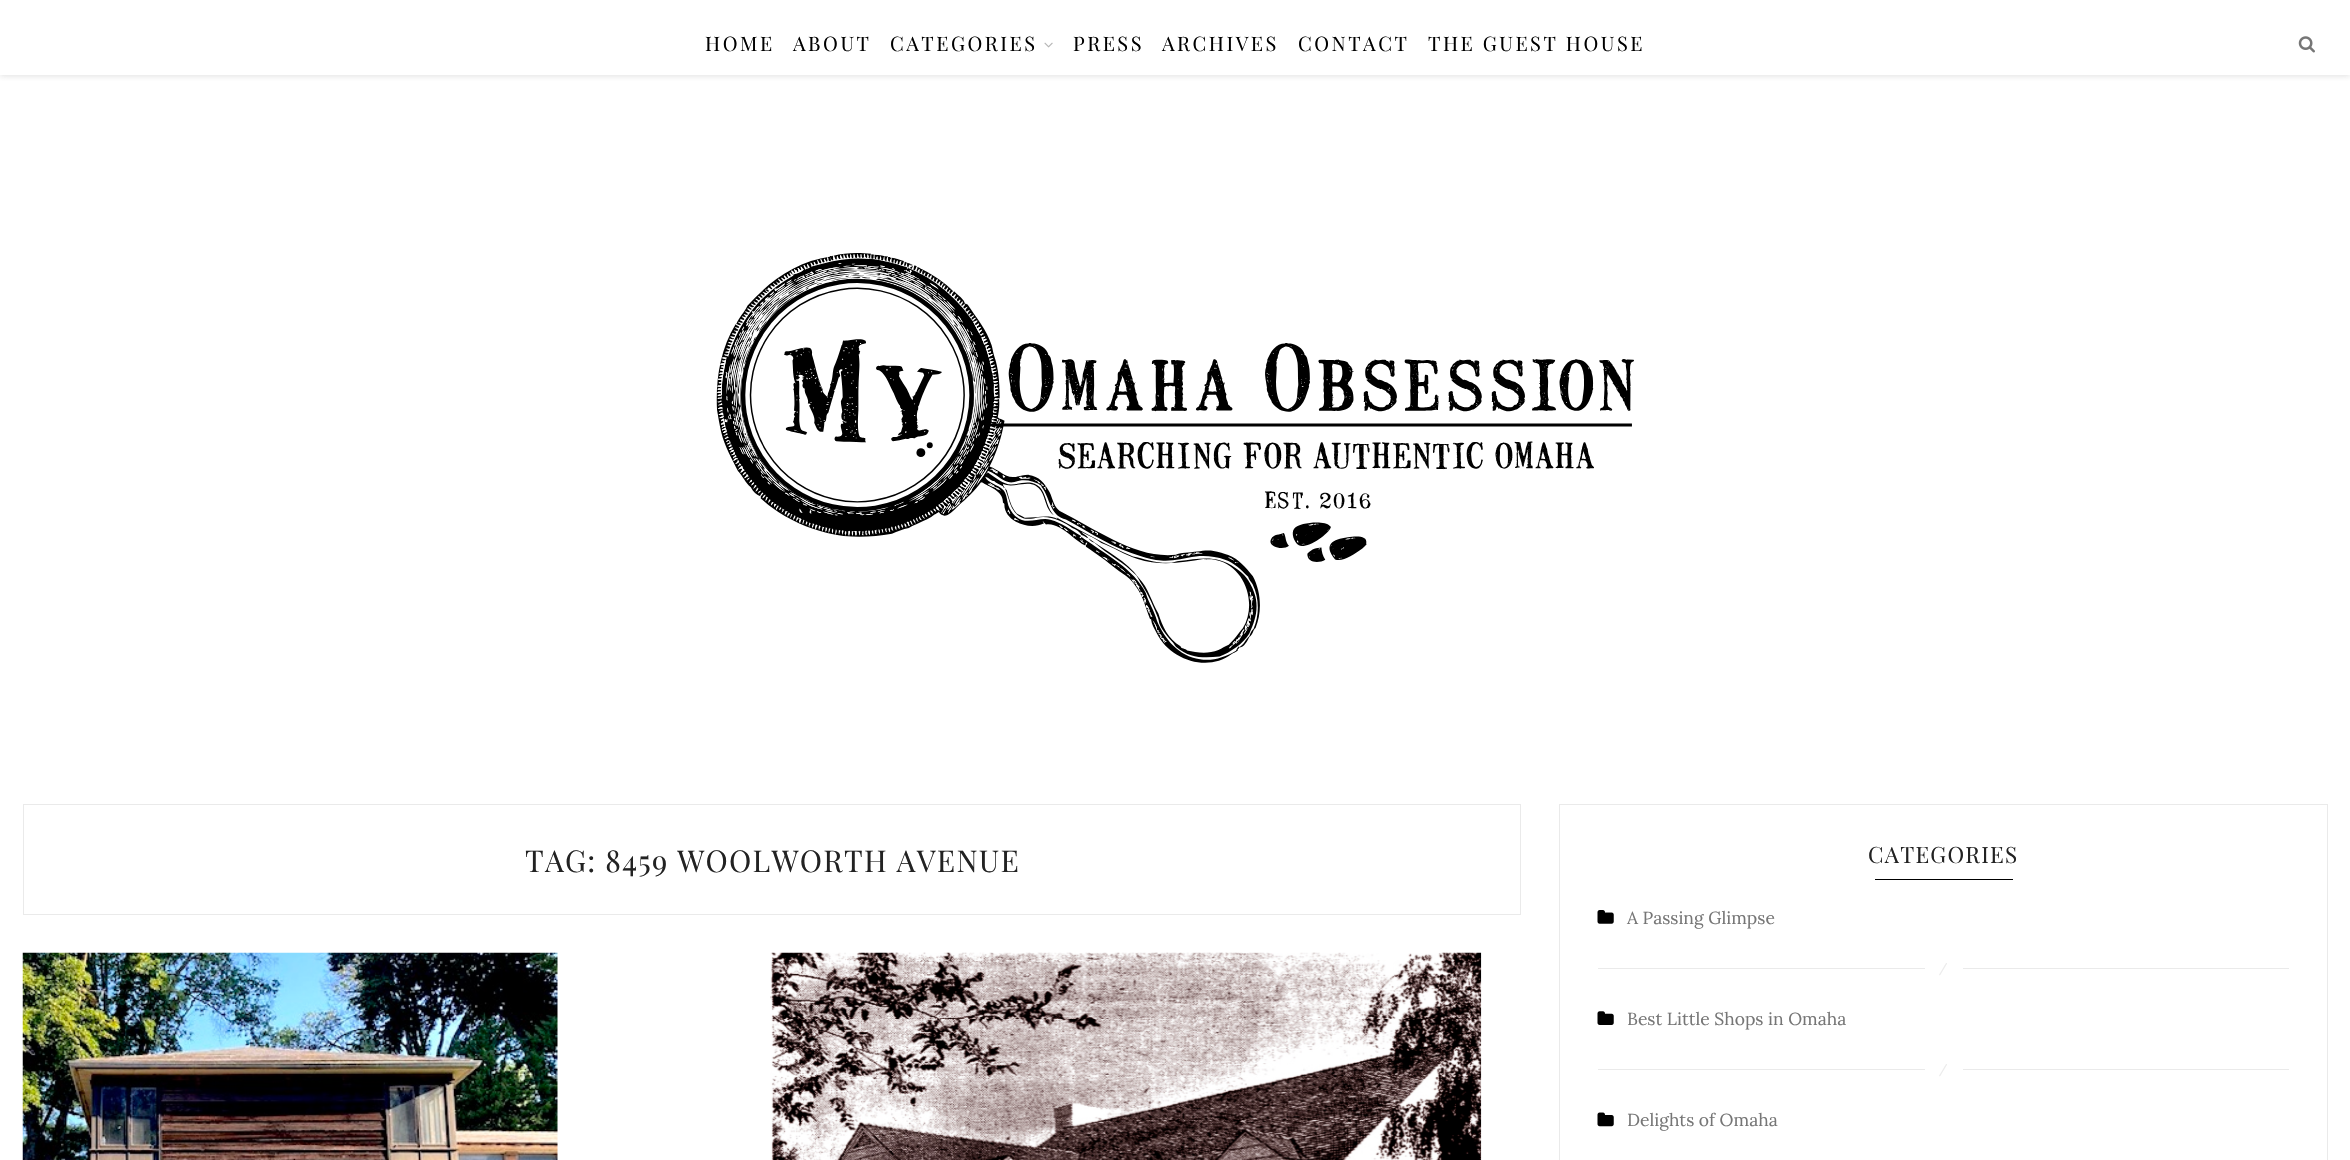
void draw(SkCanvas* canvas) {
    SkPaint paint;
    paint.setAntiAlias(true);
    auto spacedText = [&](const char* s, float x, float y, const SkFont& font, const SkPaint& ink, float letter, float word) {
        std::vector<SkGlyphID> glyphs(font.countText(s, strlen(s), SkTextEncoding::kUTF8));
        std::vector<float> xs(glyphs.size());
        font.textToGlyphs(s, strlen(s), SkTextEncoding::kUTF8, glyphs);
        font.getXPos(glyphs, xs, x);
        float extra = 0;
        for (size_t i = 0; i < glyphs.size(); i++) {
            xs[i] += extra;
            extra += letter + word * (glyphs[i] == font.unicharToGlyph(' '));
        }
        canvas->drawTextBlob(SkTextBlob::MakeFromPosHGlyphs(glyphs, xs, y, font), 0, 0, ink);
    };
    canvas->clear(0xFFFFFFFF);
    canvas->save();
    canvas->clipRect(SkRect::MakeXYWH(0, 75, 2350, 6));
    paint.setColor(0x78BEBEBE);
    paint.setMaskFilter(SkMaskFilter::MakeBlur(kNormal_SkBlurStyle, 3));
    canvas->drawRect(SkRect::MakeXYWH(0, 1, 2350, 75), paint);
    paint.setMaskFilter(nullptr);
    canvas->restore();
    SkFont font1(fontMgr->matchFamilyStyle("Playfair Display", SkFontStyle::Normal()), 20);
    font1.setSubpixel(true);
    paint.setColor(0xFF000000);
    spacedText("HOME", 705, 51, font1, paint, 2.5f, 0);
    spacedText("ABOUT", 793, 51, font1, paint, 2.5f, 0);
    spacedText("CATEGORIES", 890, 51, font1, paint, 2.5f, 0);
    canvas->drawImageRect(SkImages::DeferredFromEncodedData(SkData::MakeFromFileName("img1.png")), SkRect::MakeXYWH(1044, 42, 9, 6), SkSamplingOptions());
    spacedText("PRESS", 1073, 51, font1, paint, 2.5f, 0);
    spacedText("ARCHIVES", 1162, 51, font1, paint, 2.5f, 0);
    spacedText("CONTACT", 1298, 51, font1, paint, 2.5f, 0);
    spacedText("THE GUEST HOUSE", 1428, 51, font1, paint, 2.5f, 0);
    canvas->drawImageRect(SkImages::DeferredFromEncodedData(SkData::MakeFromFileName("img2.png")), SkRect::MakeXYWH(2298, 36, 17, 17), SkSamplingOptions());
    canvas->drawImageRect(SkImages::DeferredFromEncodedData(SkData::MakeFromFileName("img3.png")), SkRect::MakeXYWH(716, 253, 918, 410), SkSamplingOptions());
    paint.setStyle(SkPaint::kStroke_Style);
    paint.setStrokeWidth(1);
    paint.setColor(0xFFEAEAEA);
    canvas->drawRect(SkRect::MakeXYWH(23.5f, 804.5f, 1497, 110), paint);
    SkFont font2(fontMgr->matchFamilyStyle("Playfair Display", SkFontStyle::Normal()), 30);
    font2.setSubpixel(true);
    paint.setStyle(SkPaint::kFill_Style);
    paint.setColor(0xFF222222);
    spacedText("TAG: 8459 WOOLWORTH AVENUE", 525, 872, font2, paint, 1.25f, 0);
    canvas->drawImageRect(SkImages::DeferredFromEncodedData(SkData::MakeFromFileName("img4.png")), SkRect::MakeXYWH(22, 952, 536, 208), SkSamplingOptions());
    canvas->drawImageRect(SkImages::DeferredFromEncodedData(SkData::MakeFromFileName("img5.png")), SkRect::MakeXYWH(770, 952, 712, 208), SkSamplingOptions());
    paint.setStyle(SkPaint::kStroke_Style);
    paint.setColor(0xFFEAEAEA);
    canvas->drawRect(SkRect::MakeXYWH(1559.5f, 804.5f, 768, 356), paint);
    SkFont font3(fontMgr->matchFamilyStyle("Playfair Display", SkFontStyle::Normal()), 22.5f);
    font3.setSubpixel(true);
    paint.setStyle(SkPaint::kFill_Style);
    paint.setColor(0xFF222222);
    spacedText("CATEGORIES", 1868, 863, font3, paint, 1.25f, 0);
    paint.setColor(0xFF000000);
    canvas->drawRect(SkRect::MakeXYWH(1875, 879, 138, 1), paint);
    paint.setColor(0xFFEAEAEA);
    canvas->drawRect(SkRect::MakeXYWH(1598, 968, 691, 1), paint);
    canvas->drawImageRect(SkImages::DeferredFromEncodedData(SkData::MakeFromFileName("img6.png")), SkRect::MakeXYWH(1597, 910, 17, 14), SkSamplingOptions());
    SkFont font4(fontMgr->matchFamilyStyle("Lora", SkFontStyle::Normal()), 17.5f);
    font4.setSubpixel(true);
    paint.setColor(0xFF767676);
    canvas->drawString("A Passing Glimpse", 1627, 924, font4, paint);
    paint.setColor(0xFFFFFFFF);
    canvas->drawRect(SkRect::MakeXYWH(1925, 968, 38, 1), paint);
    SkFont font5(fontMgr->matchFamilyStyle("Lora", SkFontStyle::Normal()), 12);
    font5.setSubpixel(true);
    paint.setColor(0xFFEAEAEA);
    canvas->drawString("/", 1939, 972, font5, paint);
    canvas->drawRect(SkRect::MakeXYWH(1598, 1069, 691, 1), paint);
    canvas->drawImageRect(SkImages::DeferredFromEncodedData(SkData::MakeFromFileName("img7.png")), SkRect::MakeXYWH(1597, 1011, 17, 14), SkSamplingOptions());
    paint.setColor(0xFF767676);
    canvas->drawString("Best Little Shops in Omaha", 1627, 1025, font4, paint);
    paint.setColor(0xFFFFFFFF);
    canvas->drawRect(SkRect::MakeXYWH(1925, 1069, 38, 1), paint);
    paint.setColor(0xFFEAEAEA);
    canvas->drawString("/", 1939, 1073, font5, paint);
    canvas->drawImageRect(SkImages::DeferredFromEncodedData(SkData::MakeFromFileName("img8.png")), SkRect::MakeXYWH(1597, 1112, 17, 15), SkSamplingOptions());
    paint.setColor(0xFF767676);
    canvas->drawString("Delights of Omaha", 1627, 1126, font4, paint);
}
